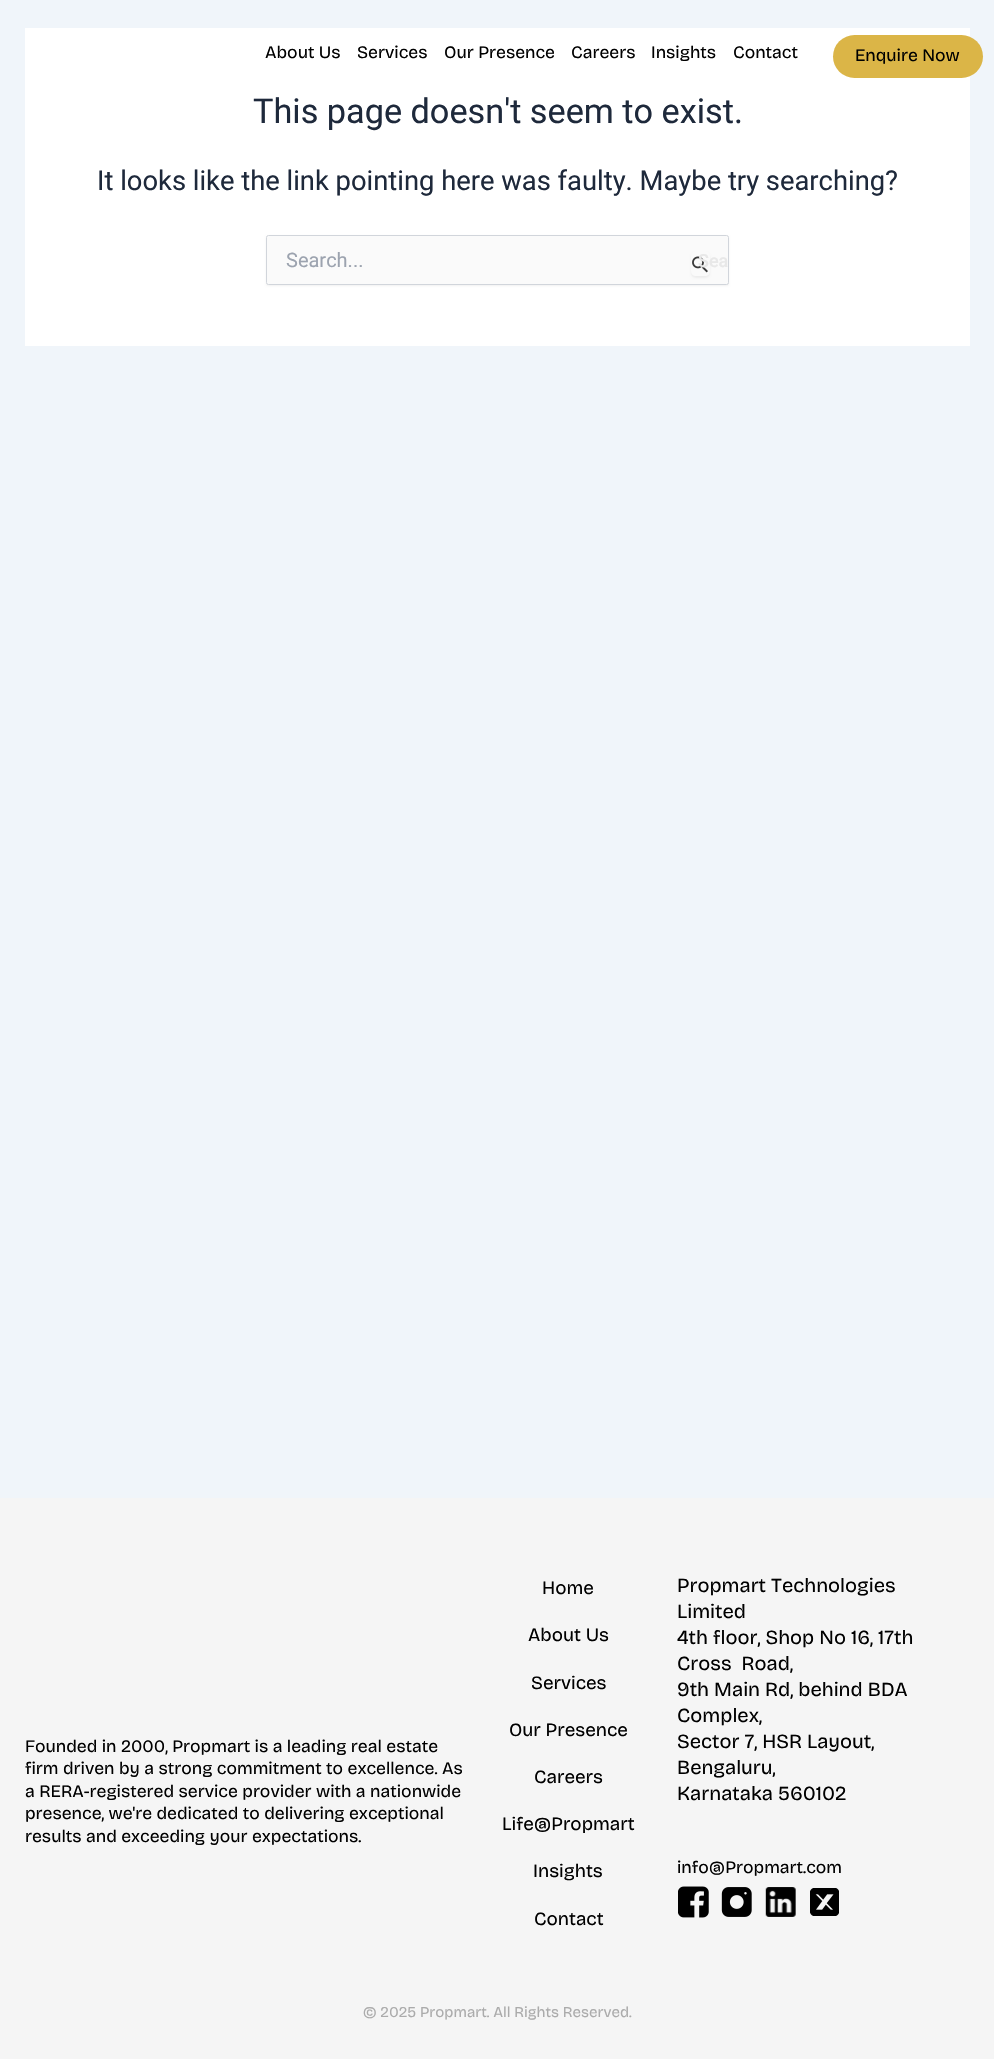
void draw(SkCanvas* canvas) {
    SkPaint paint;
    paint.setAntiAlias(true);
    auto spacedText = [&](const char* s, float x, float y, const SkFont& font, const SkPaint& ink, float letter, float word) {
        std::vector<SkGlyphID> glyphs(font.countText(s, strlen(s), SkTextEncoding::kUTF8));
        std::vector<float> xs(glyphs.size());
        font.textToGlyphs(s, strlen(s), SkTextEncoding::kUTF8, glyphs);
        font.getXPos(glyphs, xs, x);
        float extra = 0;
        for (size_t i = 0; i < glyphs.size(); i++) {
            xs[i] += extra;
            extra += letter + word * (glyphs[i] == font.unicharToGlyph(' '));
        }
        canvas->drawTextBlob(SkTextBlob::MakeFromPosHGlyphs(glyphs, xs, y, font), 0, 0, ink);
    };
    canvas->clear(0xFFF0F5FA);
    paint.setColor(0xFFFFFFFF);
    canvas->drawRect(SkRect::MakeXYWH(25, 28, 945, 318), paint);
    SkFont font1(fontMgr->matchFamilyStyle("Bricolage Grotesque", SkFontStyle::Normal()), 17.5f);
    font1.setSubpixel(true);
    paint.setColor(0xFF000000);
    canvas->drawString("About Us", 265, 58, font1, paint);
    canvas->drawString("Services", 357, 58, font1, paint);
    canvas->drawString("Our Presence", 444, 58, font1, paint);
    canvas->drawString("Careers", 571, 58, font1, paint);
    canvas->drawString("Insights", 651, 58, font1, paint);
    canvas->drawString("Contact", 733, 58, font1, paint);
    paint.setColor(0xFFDBB547);
    canvas->drawRoundRect(SkRect::MakeXYWH(833, 35, 150, 43), 21.5f, 21.5f, paint);
    paint.setColor(0xFF000000);
    canvas->drawString("Enquire Now", 855, 61, font1, paint);
    SkFont font2(fontMgr->matchFamilyStyle("Roboto", SkFontStyle::Normal()), 34.25f);
    font2.setSubpixel(true);
    paint.setColor(0xFF1E293B);
    canvas->drawString("This page doesn't seem to exist.", 253, 123, font2, paint);
    SkFont font3(fontMgr->matchFamilyStyle("Roboto", SkFontStyle::Normal()), 27.35f);
    font3.setSubpixel(true);
    canvas->drawString("It looks like the link pointing here was faulty. Maybe try searching?", 97, 190, font3, paint);
    paint.setColor(0x0D000000);
    paint.setMaskFilter(SkMaskFilter::MakeBlur(kNormal_SkBlurStyle, 1));
    canvas->drawRoundRect(SkRect::MakeXYWH(266, 236, 463, 50), 2.5f, 2.5f, paint);
    paint.setMaskFilter(nullptr);
    paint.setColor(0xFFFAFAFA);
    canvas->drawRoundRect(SkRect::MakeXYWH(266.5f, 235.5f, 462, 49), 2, 2, paint);
    paint.setStyle(SkPaint::kStroke_Style);
    paint.setStrokeWidth(1);
    paint.setColor(0xFFD1D5DB);
    canvas->drawRoundRect(SkRect::MakeXYWH(266.5f, 235.5f, 462, 49), 2, 2, paint);
    SkFont font4(fontMgr->matchFamilyStyle("Roboto", SkFontStyle::Normal()), 20);
    font4.setSubpixel(true);
    paint.setStyle(SkPaint::kFill_Style);
    paint.setColor(0xFF9CA3AF);
    canvas->drawString("Search...", 286, 267, font4, paint);
    canvas->save();
    canvas->clipPath(SkPathBuilder(SkPathFillType::kEvenOdd).moveTo(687, 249).lineTo(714, 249).lineTo(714, 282).lineTo(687, 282).close().moveTo(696, 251).lineTo(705, 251).cubicTo(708, 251, 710, 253, 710, 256).lineTo(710, 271).cubicTo(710, 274, 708, 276, 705, 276).lineTo(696, 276).cubicTo(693, 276, 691, 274, 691, 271).lineTo(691, 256).cubicTo(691, 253, 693, 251, 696, 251).close().detach(), true);
    paint.setColor(0x0D000000);
    paint.setMaskFilter(SkMaskFilter::MakeBlur(kNormal_SkBlurStyle, 1));
    canvas->drawRoundRect(SkRect::MakeXYWH(691, 253, 19, 25), 5, 5, paint);
    paint.setMaskFilter(nullptr);
    canvas->restore();
    canvas->drawImageRect(SkImages::DeferredFromEncodedData(SkData::MakeFromFileName("img1.png")), SkRect::MakeXYWH(692, 256, 16, 17), SkSamplingOptions());
    SkFont font5(fontMgr->matchFamilyStyle("Roboto", SkFontStyle(500, SkFontStyle::kNormal_Width, SkFontStyle::kUpright_Slant)), 18);
    font5.setSubpixel(true);
    paint.setColor(0xFFE8E8E8);
    canvas->drawString("Sea", 698, 267, font5, paint);
    paint.setColor(0xFFF5F5F5);
    canvas->drawRect(SkRect::MakeXYWH(0, 1498, 994, 561), paint);
    paint.setColor(0xFF000000);
    canvas->drawString("Founded in 2000, Propmart is a leading real estate", 25, 1752, font1, paint);
    canvas->drawString("firm driven by a strong commitment to excellence. As", 25, 1774, font1, paint);
    canvas->drawString("a RERA-registered service provider with a nationwide", 25, 1797, font1, paint);
    canvas->drawString("presence, we're dedicated to delivering exceptional", 25, 1819, font1, paint);
    canvas->drawString("results and exceeding your expectations.", 25, 1842, font1, paint);
    SkFont font6(fontMgr->matchFamilyStyle("Bricolage Grotesque", SkFontStyle::Normal()), 18.75f);
    font6.setSubpixel(true);
    canvas->drawString("Home", 542, 1594, font6, paint);
    canvas->drawString("About Us", 528, 1641, font6, paint);
    canvas->drawString("Services", 531, 1689, font6, paint);
    canvas->drawString("Our Presence", 509, 1736, font6, paint);
    canvas->drawString("Careers", 534, 1783, font6, paint);
    canvas->drawString("Life@Propmart", 502, 1830, font6, paint);
    canvas->drawString("Insights", 533, 1877, font6, paint);
    canvas->drawString("Contact", 534, 1925, font6, paint);
    SkFont font7(fontMgr->matchFamilyStyle("Bricolage Grotesque", SkFontStyle::Normal()), 20);
    font7.setSubpixel(true);
    canvas->drawString("Propmart Technologies", 677, 1592, font7, paint);
    canvas->drawString("Limited", 677, 1618, font7, paint);
    canvas->drawString("4th floor, Shop No 16, 17th", 677, 1644, font7, paint);
    spacedText("Cross Road,", 677, 1670, font7, paint, 0, 5);
    canvas->drawString("9th Main Rd, behind BDA", 677, 1696, font7, paint);
    canvas->drawString("Complex,", 677, 1722, font7, paint);
    canvas->drawString("Sector 7, HSR Layout,", 677, 1748, font7, paint);
    canvas->drawString("Bengaluru,", 677, 1774, font7, paint);
    canvas->drawString("Karnataka 560102", 677, 1800, font7, paint);
    canvas->drawString("info@Propmart.com", 677, 1873, font1, paint);
    canvas->drawImageRect(SkImages::DeferredFromEncodedData(SkData::MakeFromFileName("img2.png")), SkRect::MakeXYWH(678, 1886, 31, 32), SkSamplingOptions());
    canvas->drawImageRect(SkImages::DeferredFromEncodedData(SkData::MakeFromFileName("img3.png")), SkRect::MakeXYWH(721, 1887, 31, 30), SkSamplingOptions());
    canvas->drawImageRect(SkImages::DeferredFromEncodedData(SkData::MakeFromFileName("img4.png")), SkRect::MakeXYWH(765, 1887, 31, 30), SkSamplingOptions());
    canvas->drawImageRect(SkImages::DeferredFromEncodedData(SkData::MakeFromFileName("img5.png")), SkRect::MakeXYWH(810, 1888, 29, 28), SkSamplingOptions());
    SkFont font8(fontMgr->matchFamilyStyle("Bricolage Grotesque", SkFontStyle::Normal()), 15);
    font8.setSubpixel(true);
    paint.setColor(0xFFABABAB);
    canvas->drawString("© 2025 Propmart. All Rights Reserved.", 363, 2017, font8, paint);
}
